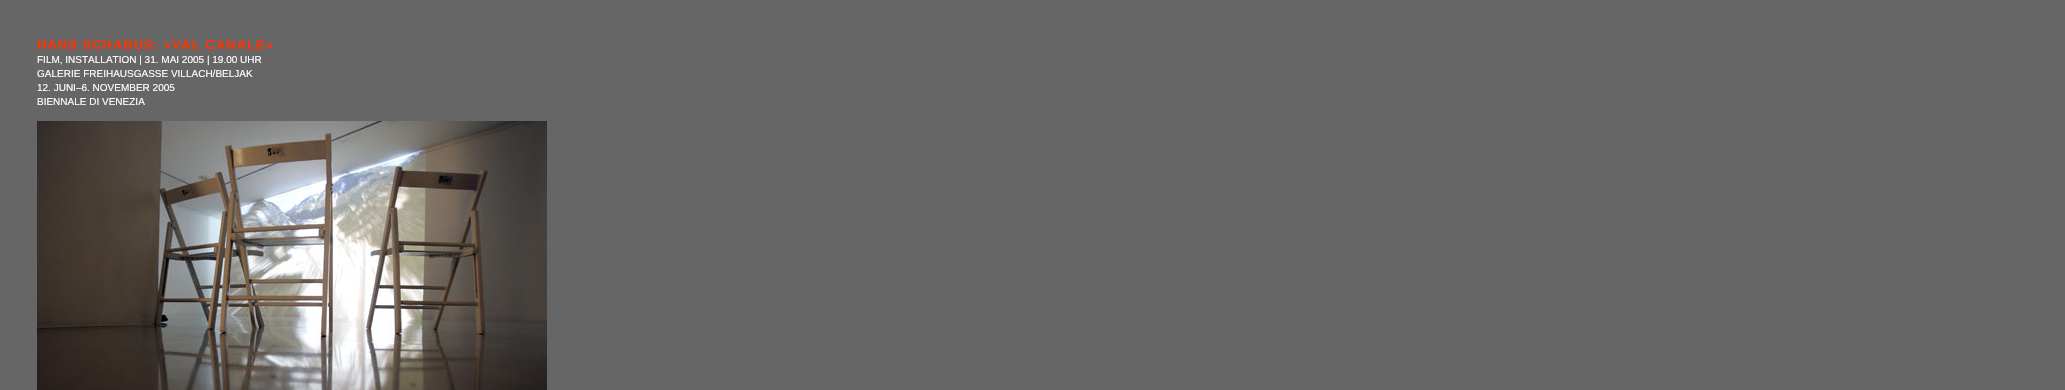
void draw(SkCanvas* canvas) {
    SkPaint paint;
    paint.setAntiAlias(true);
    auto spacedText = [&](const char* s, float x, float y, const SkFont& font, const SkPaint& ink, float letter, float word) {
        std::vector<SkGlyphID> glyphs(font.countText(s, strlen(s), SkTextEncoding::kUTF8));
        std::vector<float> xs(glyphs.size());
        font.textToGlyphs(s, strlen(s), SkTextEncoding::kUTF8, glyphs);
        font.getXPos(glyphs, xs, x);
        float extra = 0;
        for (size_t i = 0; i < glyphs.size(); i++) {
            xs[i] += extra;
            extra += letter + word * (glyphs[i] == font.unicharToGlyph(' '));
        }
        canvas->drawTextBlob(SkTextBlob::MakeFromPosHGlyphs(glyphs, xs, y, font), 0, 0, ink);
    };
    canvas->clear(0xFF666666);
    SkFont font1(fontMgr->matchFamilyStyle("Liberation Sans", SkFontStyle::Bold()), 13);
    font1.setSubpixel(true);
    paint.setColor(0xFFFF3300);
    spacedText("HANS SCHABUS: »VAL CANALE«", 37, 49, font1, paint, 1, 0);
    SkFont font2(fontMgr->matchFamilyStyle("Liberation Sans", SkFontStyle::Normal()), 10);
    font2.setSubpixel(true);
    paint.setColor(0xFFFFFFFF);
    canvas->drawString("FILM, INSTALLATION | 31. MAI 2005 | 19.00 UHR", 37, 63, font2, paint);
    canvas->drawString("GALERIE FREIHAUSGASSE VILLACH/BELJAK", 37, 77, font2, paint);
    canvas->drawString("12. JUNI–6. NOVEMBER 2005", 37, 91, font2, paint);
    canvas->drawString("BIENNALE DI VENEZIA", 37, 105, font2, paint);
    canvas->drawImageRect(SkImages::DeferredFromEncodedData(SkData::MakeFromFileName("img1.png")), SkRect::MakeXYWH(37, 121, 510, 269), SkSamplingOptions());
}
